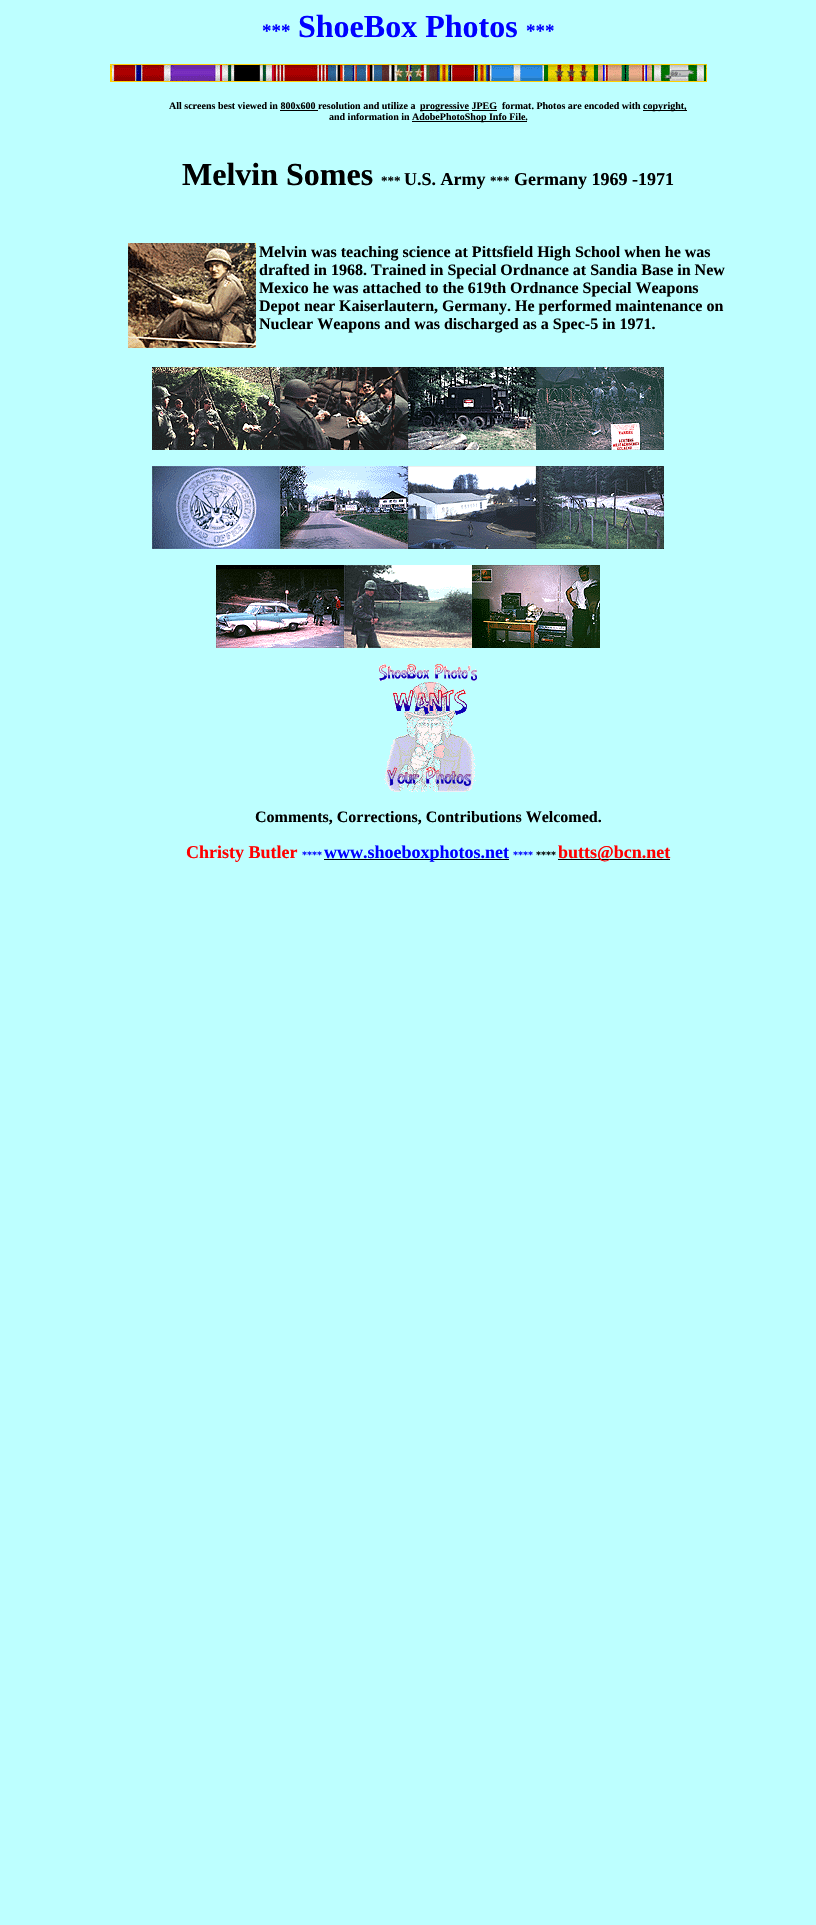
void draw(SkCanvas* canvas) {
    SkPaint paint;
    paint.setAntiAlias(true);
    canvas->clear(0xFFBDFFFF);
    SkFont font1(fontMgr->matchFamilyStyle("Liberation Serif", SkFontStyle::Bold()), 19);
    font1.setSubpixel(true);
    paint.setColor(0xFF0000FF);
    canvas->drawString("***", 262, 37, font1, paint);
    SkFont font2(fontMgr->matchFamilyStyle("Liberation Serif", SkFontStyle::Bold()), 32);
    font2.setSubpixel(true);
    canvas->drawString("ShoeBox Photos", 298, 37, font2, paint);
    canvas->drawString("***", 526, 37, font1, paint);
    canvas->drawImageRect(SkImages::DeferredFromEncodedData(SkData::MakeFromFileName("img1.png")), SkRect::MakeXYWH(110, 64, 597, 18), SkSamplingOptions());
    SkFont font3(fontMgr->matchFamilyStyle("Liberation Serif", SkFontStyle::Bold()), 10);
    font3.setSubpixel(true);
    paint.setColor(0xFF000000);
    canvas->drawString("All screens best viewed in 800x600 resolution and utilize a", 169, 109, font3, paint);
    canvas->drawRect(SkRect::MakeXYWH(280, 110, 38, 1), paint);
    canvas->drawRect(SkRect::MakeXYWH(420, 110, 49, 1), paint);
    canvas->drawString("progressive JPEG", 420, 109, font3, paint);
    canvas->drawRect(SkRect::MakeXYWH(472, 110, 25, 1), paint);
    canvas->drawString("format. Photos are encoded with", 502, 109, font3, paint);
    canvas->drawRect(SkRect::MakeXYWH(643, 110, 44, 1), paint);
    canvas->drawString("copyright,", 643, 109, font3, paint);
    canvas->drawString("and information in", 329, 120, font3, paint);
    canvas->drawRect(SkRect::MakeXYWH(412, 121, 115, 1), paint);
    canvas->drawString("AdobePhotoShop Info File.", 412, 120, font3, paint);
    canvas->drawString("Melvin Somes", 182, 185, font2, paint);
    SkFont font4(fontMgr->matchFamilyStyle("Liberation Serif", SkFontStyle::Bold()), 13);
    font4.setSubpixel(true);
    canvas->drawString("***", 381, 185, font4, paint);
    SkFont font5(fontMgr->matchFamilyStyle("Liberation Serif", SkFontStyle::Bold()), 18);
    font5.setSubpixel(true);
    canvas->drawString("U.S. Army", 404, 185, font5, paint);
    canvas->drawString("***", 490, 185, font4, paint);
    canvas->drawString("Germany 1969 -1971", 514, 185, font5, paint);
    canvas->drawImageRect(SkImages::DeferredFromEncodedData(SkData::MakeFromFileName("img2.png")), SkRect::MakeXYWH(128, 243, 128, 105), SkSamplingOptions());
    SkFont font6(fontMgr->matchFamilyStyle("Liberation Serif", SkFontStyle::Bold()), 16);
    font6.setSubpixel(true);
    canvas->drawString("Melvin was teaching science at Pittsfield High School when he was", 259, 257, font6, paint);
    canvas->drawString("drafted in 1968. Trained in Special Ordnance at Sandia Base in New", 259, 275, font6, paint);
    canvas->drawString("Mexico he was attached to the 619th Ordnance Special Weapons", 259, 293, font6, paint);
    canvas->drawString("Depot near Kaiserlautern, Germany. He performed maintenance on", 259, 311, font6, paint);
    canvas->drawString("Nuclear Weapons and was discharged as a Spec-5 in 1971.", 259, 329, font6, paint);
    canvas->drawImageRect(SkImages::DeferredFromEncodedData(SkData::MakeFromFileName("img3.png")), SkRect::MakeXYWH(152, 367, 128, 83), SkSamplingOptions());
    canvas->drawImageRect(SkImages::DeferredFromEncodedData(SkData::MakeFromFileName("img4.png")), SkRect::MakeXYWH(280, 367, 128, 83), SkSamplingOptions());
    canvas->drawImageRect(SkImages::DeferredFromEncodedData(SkData::MakeFromFileName("img5.png")), SkRect::MakeXYWH(408, 367, 128, 83), SkSamplingOptions());
    canvas->drawImageRect(SkImages::DeferredFromEncodedData(SkData::MakeFromFileName("img6.png")), SkRect::MakeXYWH(536, 367, 128, 83), SkSamplingOptions());
    canvas->drawImageRect(SkImages::DeferredFromEncodedData(SkData::MakeFromFileName("img7.png")), SkRect::MakeXYWH(152, 466, 128, 83), SkSamplingOptions());
    canvas->drawImageRect(SkImages::DeferredFromEncodedData(SkData::MakeFromFileName("img8.png")), SkRect::MakeXYWH(280, 466, 128, 83), SkSamplingOptions());
    canvas->drawImageRect(SkImages::DeferredFromEncodedData(SkData::MakeFromFileName("img9.png")), SkRect::MakeXYWH(408, 466, 128, 83), SkSamplingOptions());
    canvas->drawImageRect(SkImages::DeferredFromEncodedData(SkData::MakeFromFileName("img10.png")), SkRect::MakeXYWH(536, 466, 128, 83), SkSamplingOptions());
    canvas->drawImageRect(SkImages::DeferredFromEncodedData(SkData::MakeFromFileName("img11.png")), SkRect::MakeXYWH(216, 565, 128, 83), SkSamplingOptions());
    canvas->drawImageRect(SkImages::DeferredFromEncodedData(SkData::MakeFromFileName("img12.png")), SkRect::MakeXYWH(344, 565, 128, 83), SkSamplingOptions());
    canvas->drawImageRect(SkImages::DeferredFromEncodedData(SkData::MakeFromFileName("img13.png")), SkRect::MakeXYWH(472, 565, 128, 83), SkSamplingOptions());
    canvas->drawImageRect(SkImages::DeferredFromEncodedData(SkData::MakeFromFileName("img14.png")), SkRect::MakeXYWH(379, 664, 98, 128), SkSamplingOptions());
    canvas->drawString("Comments, Corrections, Contributions Welcomed.", 255, 822, font6, paint);
    paint.setColor(0xFFFF0000);
    canvas->drawString("Christy Butler", 186, 858, font5, paint);
    paint.setColor(0xFF0000FF);
    canvas->drawString("****", 302, 858, font3, paint);
    paint.setColor(0xFF000000);
    canvas->drawRect(SkRect::MakeXYWH(324, 859, 185, 1), paint);
    paint.setColor(0xFF0000FF);
    canvas->drawString("www.shoeboxphotos.net", 324, 858, font5, paint);
    canvas->drawString("****", 513, 858, font3, paint);
    paint.setColor(0xFF000000);
    canvas->drawString("****", 536, 858, font3, paint);
    canvas->drawRect(SkRect::MakeXYWH(558, 859, 112, 1), paint);
    paint.setColor(0xFFFF0000);
    canvas->drawString("butts@bcn.net", 558, 858, font5, paint);
}
